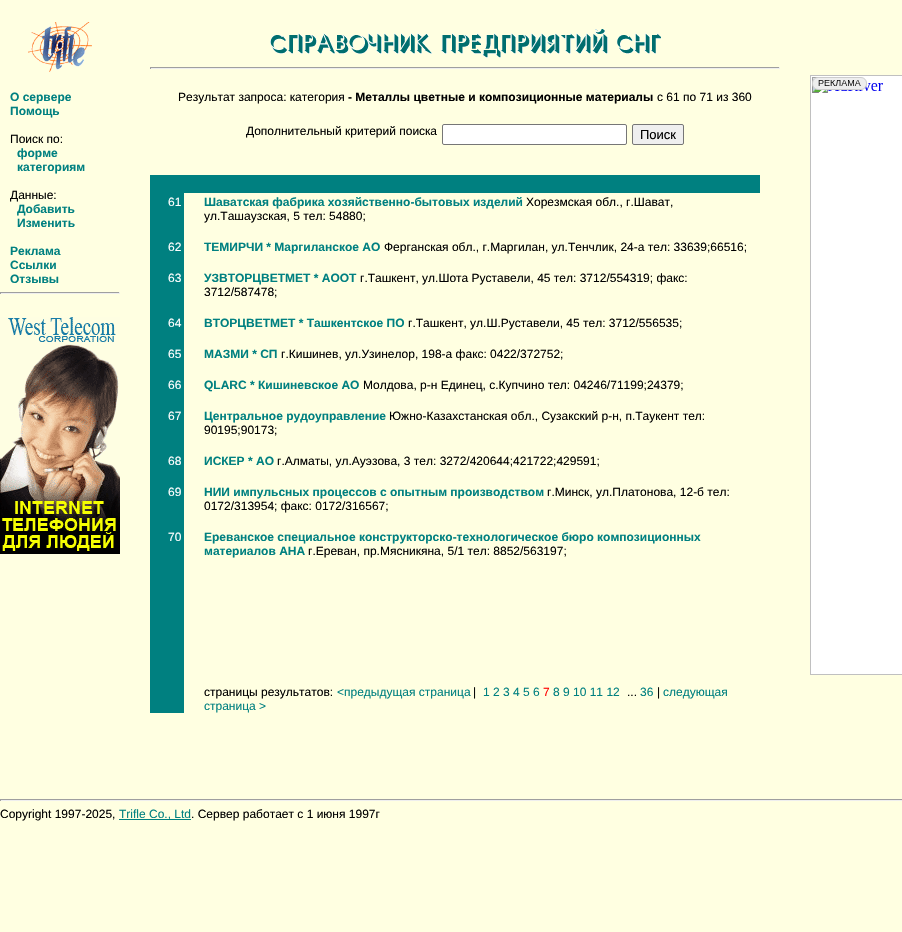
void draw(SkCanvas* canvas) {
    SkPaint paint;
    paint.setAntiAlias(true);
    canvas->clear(0xFFFFFFE1);
    canvas->drawImageRect(SkImages::DeferredFromEncodedData(SkData::MakeFromFileName("img1.png")), SkRect::MakeXYWH(28, 22, 64, 50), SkSamplingOptions());
    canvas->drawImageRect(SkImages::DeferredFromEncodedData(SkData::MakeFromFileName("img2.png")), SkRect::MakeXYWH(270, 29, 391, 29), SkSamplingOptions());
    paint.setColor(0xFF9F9F9F);
    canvas->drawRect(SkRect::MakeXYWH(150, 67, 630, 1), paint);
    paint.setColor(0xFFEEEEEE);
    canvas->drawRect(SkRect::MakeXYWH(779, 67, 1, 2), paint);
    canvas->drawRect(SkRect::MakeXYWH(150, 68, 630, 1), paint);
    paint.setColor(0xFF9F9F9F);
    canvas->drawRect(SkRect::MakeXYWH(150, 67, 1, 2), paint);
    SkFont font1(fontMgr->matchFamilyStyle("Liberation Sans", SkFontStyle::Bold()), 12);
    font1.setSubpixel(true);
    paint.setColor(0xFF008080);
    canvas->drawString("О сервере", 10, 101, font1, paint);
    canvas->drawString("Помощь", 10, 115, font1, paint);
    SkFont font2(fontMgr->matchFamilyStyle("Liberation Sans", SkFontStyle::Normal()), 12);
    font2.setSubpixel(true);
    paint.setColor(0xFF000000);
    canvas->drawString("Поиск по:", 10, 143, font2, paint);
    paint.setColor(0xFF008080);
    canvas->drawString("форме", 17, 157, font1, paint);
    canvas->drawString("категориям", 17, 171, font1, paint);
    paint.setColor(0xFF000000);
    canvas->drawString("Данные:", 10, 199, font2, paint);
    paint.setColor(0xFF008080);
    canvas->drawString("Добавить", 17, 213, font1, paint);
    canvas->drawString("Изменить", 17, 227, font1, paint);
    canvas->drawString("Реклама", 10, 255, font1, paint);
    canvas->drawString("Ссылки", 10, 269, font1, paint);
    canvas->drawString("Отзывы", 10, 283, font1, paint);
    paint.setColor(0xFF9F9F9F);
    canvas->drawRect(SkRect::MakeXYWH(0, 292, 120, 1), paint);
    paint.setColor(0xFFEEEEEE);
    canvas->drawRect(SkRect::MakeXYWH(119, 292, 1, 2), paint);
    canvas->drawRect(SkRect::MakeXYWH(0, 293, 120, 1), paint);
    paint.setColor(0xFF9F9F9F);
    canvas->drawRect(SkRect::MakeXYWH(0, 292, 1, 2), paint);
    canvas->drawImageRect(SkImages::DeferredFromEncodedData(SkData::MakeFromFileName("img3.png")), SkRect::MakeXYWH(0, 317, 120, 237), SkSamplingOptions());
    paint.setColor(0xFF000000);
    canvas->drawString("Результат запроса: категория", 178, 101, font2, paint);
    canvas->drawString("- Металлы цветные и композиционные материалы", 348, 101, font1, paint);
    canvas->drawString("c 61 по 71 из 360", 657, 101, font2, paint);
    canvas->drawString("Дополнительный критерий поиска", 246, 135, font2, paint);
    paint.setColor(0xFFFFFFFF);
    canvas->drawRoundRect(SkRect::MakeXYWH(442.5f, 124.5f, 184, 20), 1.5f, 1.5f, paint);
    paint.setStyle(SkPaint::kStroke_Style);
    paint.setStrokeWidth(1);
    paint.setColor(0xFF767676);
    canvas->drawRoundRect(SkRect::MakeXYWH(442.5f, 124.5f, 184, 20), 1.5f, 1.5f, paint);
    paint.setStyle(SkPaint::kFill_Style);
    paint.setColor(0xFFEFEFEF);
    canvas->drawRoundRect(SkRect::MakeXYWH(632.5f, 124.5f, 51, 20), 1.5f, 1.5f, paint);
    paint.setStyle(SkPaint::kStroke_Style);
    paint.setColor(0xFF767676);
    canvas->drawRoundRect(SkRect::MakeXYWH(632.5f, 124.5f, 51, 20), 1.5f, 1.5f, paint);
    SkFont font3(fontMgr->matchFamilyStyle("Liberation Sans", SkFontStyle::Normal()), 13);
    font3.setSubpixel(true);
    paint.setStyle(SkPaint::kFill_Style);
    paint.setColor(0xFF000000);
    canvas->drawString("Поиск", 640, 139, font3, paint);
    paint.setColor(0xFF008080);
    canvas->drawRect(SkRect::MakeXYWH(150, 175, 610, 18), paint);
    canvas->drawRect(SkRect::MakeXYWH(150, 193, 34, 520), paint);
    paint.setColor(0xFFFFFFFF);
    canvas->drawString("61", 168, 206, font2, paint);
    paint.setColor(0xFF008080);
    canvas->drawString("Шаватская фабрика хозяйственно-бытовых изделий", 204, 206, font1, paint);
    paint.setColor(0xFF000000);
    canvas->drawString("Хорезмская обл., г.Шават,", 526, 206, font2, paint);
    canvas->drawString("ул.Ташаузская, 5 тел: 54880;", 204, 220, font2, paint);
    paint.setColor(0xFFFFFFFF);
    canvas->drawString("62", 168, 251, font2, paint);
    paint.setColor(0xFF008080);
    canvas->drawString("ТЕМИРЧИ * Маргиланское АО", 204, 251, font1, paint);
    paint.setColor(0xFF000000);
    canvas->drawString("Ферганская обл., г.Маргилан, ул.Тенчлик, 24-а тел: 33639;66516;", 384, 251, font2, paint);
    paint.setColor(0xFFFFFFFF);
    canvas->drawString("63", 168, 282, font2, paint);
    paint.setColor(0xFF008080);
    canvas->drawString("УЗВТОРЦВЕТМЕТ * АООТ", 204, 282, font1, paint);
    paint.setColor(0xFF000000);
    canvas->drawString("г.Ташкент, ул.Шота Руставели, 45 тел: 3712/554319; факс:", 360, 282, font2, paint);
    canvas->drawString("3712/587478;", 204, 296, font2, paint);
    paint.setColor(0xFFFFFFFF);
    canvas->drawString("64", 168, 327, font2, paint);
    paint.setColor(0xFF008080);
    canvas->drawString("ВТОРЦВЕТМЕТ * Ташкентское ПО", 204, 327, font1, paint);
    paint.setColor(0xFF000000);
    canvas->drawString("г.Ташкент, ул.Ш.Руставели, 45 тел: 3712/556535;", 408, 327, font2, paint);
    paint.setColor(0xFFFFFFFF);
    canvas->drawString("65", 168, 358, font2, paint);
    paint.setColor(0xFF008080);
    canvas->drawString("МАЗМИ * СП", 204, 358, font1, paint);
    paint.setColor(0xFF000000);
    canvas->drawString("г.Кишинев, ул.Узинелор, 198-а факс: 0422/372752;", 281, 358, font2, paint);
    paint.setColor(0xFFFFFFFF);
    canvas->drawString("66", 168, 389, font2, paint);
    paint.setColor(0xFF008080);
    canvas->drawString("QLARC * Кишиневское АО", 204, 389, font1, paint);
    paint.setColor(0xFF000000);
    canvas->drawString("Молдова, р-н Единец, с.Купчино тел: 04246/71199;24379;", 363, 389, font2, paint);
    paint.setColor(0xFFFFFFFF);
    canvas->drawString("67", 168, 420, font2, paint);
    paint.setColor(0xFF008080);
    canvas->drawString("Центральное рудоуправление", 204, 420, font1, paint);
    paint.setColor(0xFF000000);
    canvas->drawString("Южно-Казахстанская обл., Сузакский р-н, п.Таукент тел:", 389, 420, font2, paint);
    canvas->drawString("90195;90173;", 204, 434, font2, paint);
    paint.setColor(0xFFFFFFFF);
    canvas->drawString("68", 168, 465, font2, paint);
    paint.setColor(0xFF008080);
    canvas->drawString("ИСКЕР * АО", 204, 465, font1, paint);
    paint.setColor(0xFF000000);
    canvas->drawString("г.Алматы, ул.Ауэзова, 3 тел: 3272/420644;421722;429591;", 277, 465, font2, paint);
    paint.setColor(0xFFFFFFFF);
    canvas->drawString("69", 168, 496, font2, paint);
    paint.setColor(0xFF008080);
    canvas->drawString("НИИ импульсных процессов с опытным производством", 204, 496, font1, paint);
    paint.setColor(0xFF000000);
    canvas->drawString("г.Минск, ул.Платонова, 12-б тел:", 547, 496, font2, paint);
    canvas->drawString("0172/313954; факс: 0172/316567;", 204, 510, font2, paint);
    paint.setColor(0xFFFFFFFF);
    canvas->drawString("70", 168, 541, font2, paint);
    paint.setColor(0xFF008080);
    canvas->drawString("Ереванское специальное конструкторско-технологическое бюро композиционных", 204, 541, font1, paint);
    canvas->drawString("материалов АНА", 204, 555, font1, paint);
    paint.setColor(0xFF000000);
    canvas->drawString("г.Ереван, пр.Мясникяна, 5/1 тел: 8852/563197;", 308, 555, font2, paint);
    canvas->drawString("страницы результатов:", 204, 696, font2, paint);
    paint.setColor(0xFF008080);
    canvas->drawString("<предыдущая страница", 337, 696, font2, paint);
    paint.setColor(0xFF000000);
    canvas->drawString("|", 473, 696, font2, paint);
    paint.setColor(0xFF008080);
    canvas->drawString("1 2 3 4 5 6", 483, 696, font2, paint);
    paint.setColor(0xFFFF0000);
    canvas->drawString("7", 543, 696, font2, paint);
    paint.setColor(0xFF008080);
    canvas->drawString("8 9 10 11 12", 553, 696, font2, paint);
    paint.setColor(0xFF000000);
    canvas->drawString("...", 627, 696, font2, paint);
    paint.setColor(0xFF008080);
    canvas->drawString("36", 640, 696, font2, paint);
    paint.setColor(0xFF000000);
    canvas->drawString("|", 657, 696, font2, paint);
    paint.setColor(0xFF008080);
    canvas->drawString("следующая", 663, 696, font2, paint);
    canvas->drawString("страница >", 204, 710, font2, paint);
    canvas->drawImageRect(SkImages::DeferredFromEncodedData(SkData::MakeFromFileName("img4.png")), SkRect::MakeXYWH(810, 75, 92, 600), SkSamplingOptions());
    paint.setColor(0xFF9F9F9F);
    canvas->drawRect(SkRect::MakeXYWH(0, 799, 902, 1), paint);
    paint.setColor(0xFFEEEEEE);
    canvas->drawRect(SkRect::MakeXYWH(0, 800, 902, 1), paint);
    paint.setColor(0xFF9F9F9F);
    canvas->drawRect(SkRect::MakeXYWH(0, 799, 1, 2), paint);
    paint.setColor(0xFF000000);
    canvas->drawString("Copyright 1997-2025,", 0, 818, font2, paint);
    paint.setColor(0xFF008080);
    canvas->drawRect(SkRect::MakeXYWH(119, 819, 72, 1), paint);
    canvas->drawString("Trifle Co., Ltd", 119, 818, font2, paint);
    paint.setColor(0xFF000000);
    canvas->drawString(". Сервер работает с 1 июня 1997г", 191, 818, font2, paint);
}
